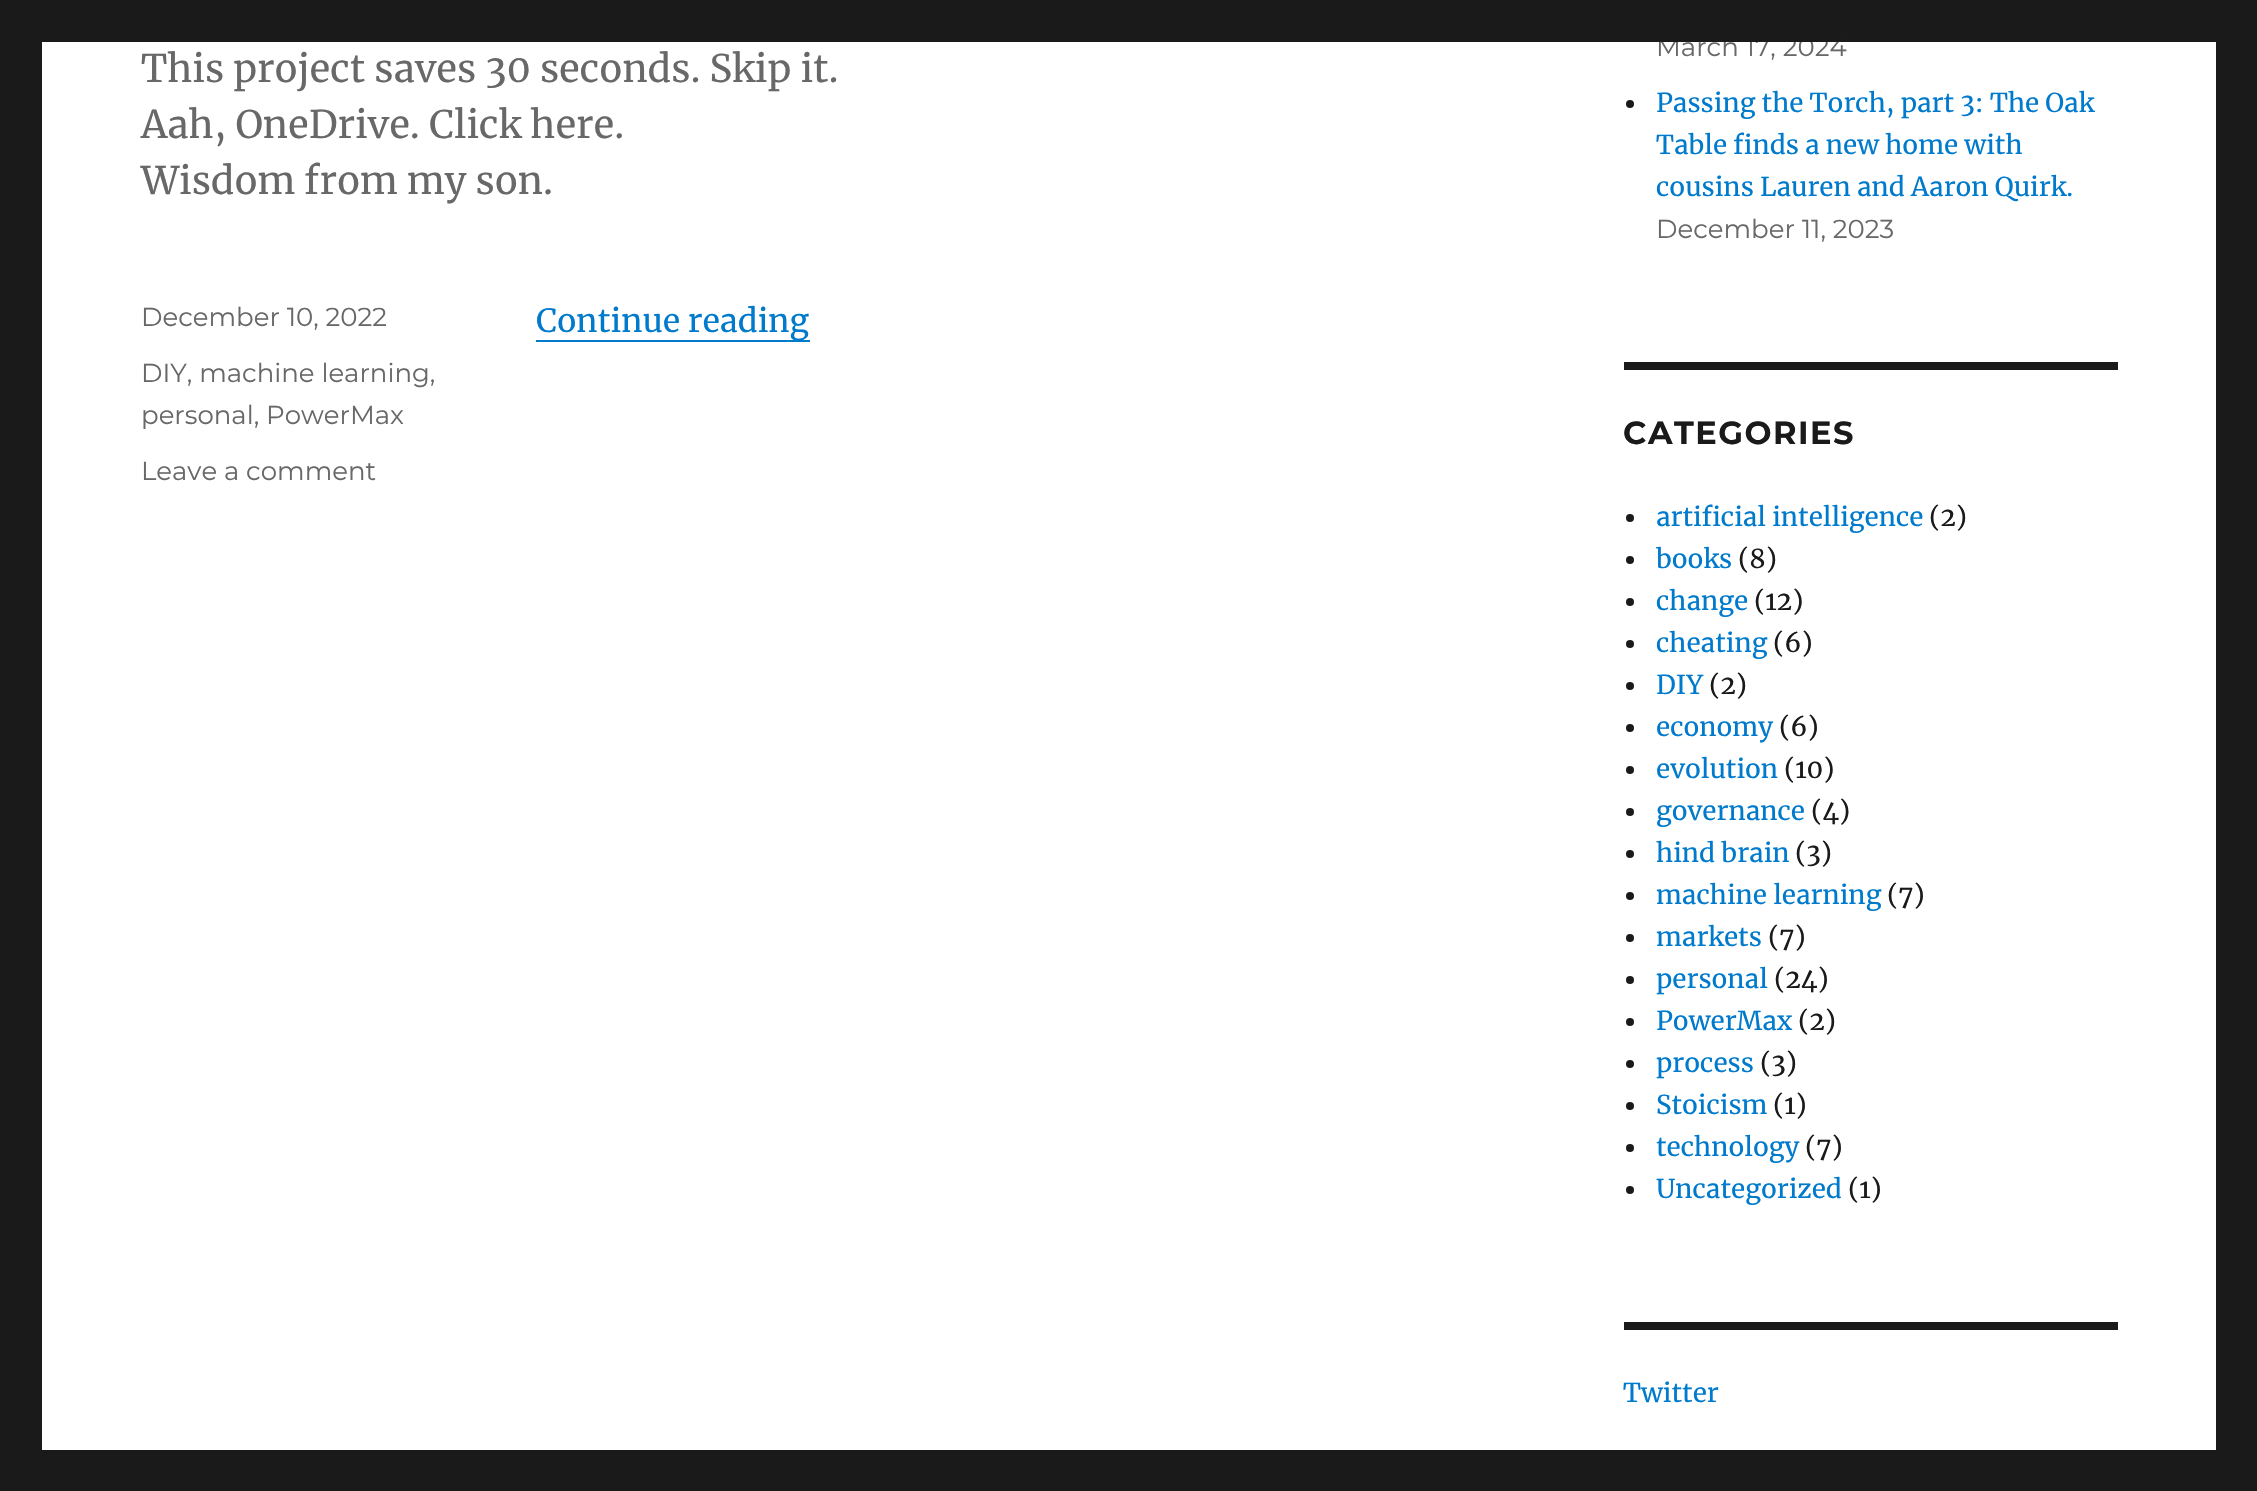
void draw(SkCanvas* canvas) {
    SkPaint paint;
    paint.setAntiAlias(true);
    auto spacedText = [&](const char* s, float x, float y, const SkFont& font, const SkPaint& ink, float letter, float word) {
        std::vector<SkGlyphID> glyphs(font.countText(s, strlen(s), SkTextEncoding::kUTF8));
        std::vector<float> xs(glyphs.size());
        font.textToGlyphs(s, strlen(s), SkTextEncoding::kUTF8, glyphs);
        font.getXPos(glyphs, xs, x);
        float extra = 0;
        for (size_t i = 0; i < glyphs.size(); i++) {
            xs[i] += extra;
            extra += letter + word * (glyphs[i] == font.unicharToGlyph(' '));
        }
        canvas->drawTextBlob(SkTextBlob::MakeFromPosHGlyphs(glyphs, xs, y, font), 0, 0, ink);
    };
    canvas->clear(0xFF1A1A1A);
    paint.setColor(0xFFFFFFFF);
    canvas->drawRect(SkRect::MakeXYWH(42, 42, 2174, 1408), paint);
    SkFont font1(fontMgr->matchFamilyStyle("Merriweather", SkFontStyle::Normal()), 38);
    font1.setSubpixel(true);
    paint.setColor(0xFF686868);
    canvas->drawString("This project saves 30 seconds. Skip it.", 141, 82, font1, paint);
    canvas->drawString("Aah, OneDrive. Click here.", 141, 138, font1, paint);
    canvas->drawString("Wisdom from my son.", 141, 194, font1, paint);
    SkFont font2(fontMgr->matchFamilyStyle("Montserrat", SkFontStyle(100, SkFontStyle::kNormal_Width, SkFontStyle::kUpright_Slant)), 26);
    font2.setSubpixel(true);
    canvas->drawString("December 10, 2022", 141, 326, font2, paint);
    canvas->drawString("DIY, machine learning,", 141, 382, font2, paint);
    canvas->drawString("personal, PowerMax", 141, 424, font2, paint);
    canvas->drawString("Leave a comment", 141, 480, font2, paint);
    paint.setColor(0xFF007ACC);
    canvas->drawRect(SkRect::MakeXYWH(536, 340, 274, 2), paint);
    SkFont font3(fontMgr->matchFamilyStyle("Merriweather", SkFontStyle::Normal()), 32);
    font3.setSubpixel(true);
    canvas->drawString("Continue reading", 536, 332, font3, paint);
    paint.setColor(0xFF686868);
    canvas->drawString("March 17, 2024", 1656, 56, font2, paint);
    paint.setColor(0xFF1A1A1A);
    canvas->drawCircle(1630, 104, 4, paint);
    SkFont font4(fontMgr->matchFamilyStyle("Merriweather", SkFontStyle::Normal()), 26);
    font4.setSubpixel(true);
    paint.setColor(0xFF007ACC);
    canvas->drawString("Passing the Torch, part 3: The Oak", 1656, 112, font4, paint);
    canvas->drawString("Table finds a new home with", 1656, 154, font4, paint);
    canvas->drawString("cousins Lauren and Aaron Quirk.", 1656, 196, font4, paint);
    paint.setColor(0xFF686868);
    canvas->drawString("December 11, 2023", 1656, 238, font2, paint);
    paint.setColor(0xFF1A1A1A);
    canvas->drawRect(SkRect::MakeXYWH(1624, 362, 494, 8), paint);
    SkFont font5(fontMgr->matchFamilyStyle("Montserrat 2", SkFontStyle(100, SkFontStyle::kNormal_Width, SkFontStyle::kUpright_Slant)), 32);
    font5.setSubpixel(true);
    spacedText("CATEGORIES", 1623, 444, font5, paint, 1.5f, 0);
    canvas->drawCircle(1630, 518, 4, paint);
    paint.setColor(0xFF007ACC);
    canvas->drawString("artificial intelligence", 1656, 526, font4, paint);
    paint.setColor(0xFF1A1A1A);
    canvas->drawString("(2)", 1929, 526, font4, paint);
    canvas->drawCircle(1630, 560, 4, paint);
    paint.setColor(0xFF007ACC);
    canvas->drawString("books", 1656, 568, font4, paint);
    paint.setColor(0xFF1A1A1A);
    canvas->drawString("(8)", 1738, 568, font4, paint);
    canvas->drawCircle(1630, 602, 4, paint);
    paint.setColor(0xFF007ACC);
    canvas->drawString("change", 1656, 610, font4, paint);
    paint.setColor(0xFF1A1A1A);
    canvas->drawString("(12)", 1754, 610, font4, paint);
    canvas->drawCircle(1630, 644, 4, paint);
    paint.setColor(0xFF007ACC);
    canvas->drawString("cheating", 1656, 652, font4, paint);
    paint.setColor(0xFF1A1A1A);
    canvas->drawString("(6)", 1773, 652, font4, paint);
    canvas->drawCircle(1630, 686, 4, paint);
    paint.setColor(0xFF007ACC);
    canvas->drawString("DIY", 1656, 694, font4, paint);
    paint.setColor(0xFF1A1A1A);
    canvas->drawString("(2)", 1709, 694, font4, paint);
    canvas->drawCircle(1630, 728, 4, paint);
    paint.setColor(0xFF007ACC);
    canvas->drawString("economy", 1656, 736, font4, paint);
    paint.setColor(0xFF1A1A1A);
    canvas->drawString("(6)", 1779, 736, font4, paint);
    canvas->drawCircle(1630, 770, 4, paint);
    paint.setColor(0xFF007ACC);
    canvas->drawString("evolution", 1656, 778, font4, paint);
    paint.setColor(0xFF1A1A1A);
    canvas->drawString("(10)", 1784, 778, font4, paint);
    canvas->drawCircle(1630, 812, 4, paint);
    paint.setColor(0xFF007ACC);
    canvas->drawString("governance", 1656, 820, font4, paint);
    paint.setColor(0xFF1A1A1A);
    canvas->drawString("(4)", 1811, 820, font4, paint);
    canvas->drawCircle(1630, 854, 4, paint);
    paint.setColor(0xFF007ACC);
    canvas->drawString("hind brain", 1656, 862, font4, paint);
    paint.setColor(0xFF1A1A1A);
    canvas->drawString("(3)", 1795, 862, font4, paint);
    canvas->drawCircle(1630, 896, 4, paint);
    paint.setColor(0xFF007ACC);
    canvas->drawString("machine learning", 1656, 904, font4, paint);
    paint.setColor(0xFF1A1A1A);
    canvas->drawString("(7)", 1887, 904, font4, paint);
    canvas->drawCircle(1630, 938, 4, paint);
    paint.setColor(0xFF007ACC);
    canvas->drawString("markets", 1656, 946, font4, paint);
    paint.setColor(0xFF1A1A1A);
    canvas->drawString("(7)", 1768, 946, font4, paint);
    canvas->drawCircle(1630, 980, 4, paint);
    paint.setColor(0xFF007ACC);
    canvas->drawString("personal", 1656, 988, font4, paint);
    paint.setColor(0xFF1A1A1A);
    canvas->drawString("(24)", 1774, 988, font4, paint);
    canvas->drawCircle(1630, 1022, 4, paint);
    paint.setColor(0xFF007ACC);
    canvas->drawString("PowerMax", 1656, 1030, font4, paint);
    paint.setColor(0xFF1A1A1A);
    canvas->drawString("(2)", 1798, 1030, font4, paint);
    canvas->drawCircle(1630, 1064, 4, paint);
    paint.setColor(0xFF007ACC);
    canvas->drawString("process", 1656, 1072, font4, paint);
    paint.setColor(0xFF1A1A1A);
    canvas->drawString("(3)", 1760, 1072, font4, paint);
    canvas->drawCircle(1630, 1106, 4, paint);
    paint.setColor(0xFF007ACC);
    canvas->drawString("Stoicism", 1656, 1114, font4, paint);
    paint.setColor(0xFF1A1A1A);
    canvas->drawString("(1)", 1773, 1114, font4, paint);
    canvas->drawCircle(1630, 1148, 4, paint);
    paint.setColor(0xFF007ACC);
    canvas->drawString("technology", 1656, 1156, font4, paint);
    paint.setColor(0xFF1A1A1A);
    canvas->drawString("(7)", 1805, 1156, font4, paint);
    canvas->drawCircle(1630, 1190, 4, paint);
    paint.setColor(0xFF007ACC);
    canvas->drawString("Uncategorized", 1656, 1198, font4, paint);
    paint.setColor(0xFF1A1A1A);
    canvas->drawString("(1)", 1848, 1198, font4, paint);
    canvas->drawRect(SkRect::MakeXYWH(1624, 1322, 494, 8), paint);
    paint.setColor(0xFF007ACC);
    canvas->drawString("Twitter", 1623, 1402, font4, paint);
    paint.setColor(0xFF1A1A1A);
    canvas->drawRect(SkRect::MakeXYWH(1658, 36, 184, 6), paint);
}
